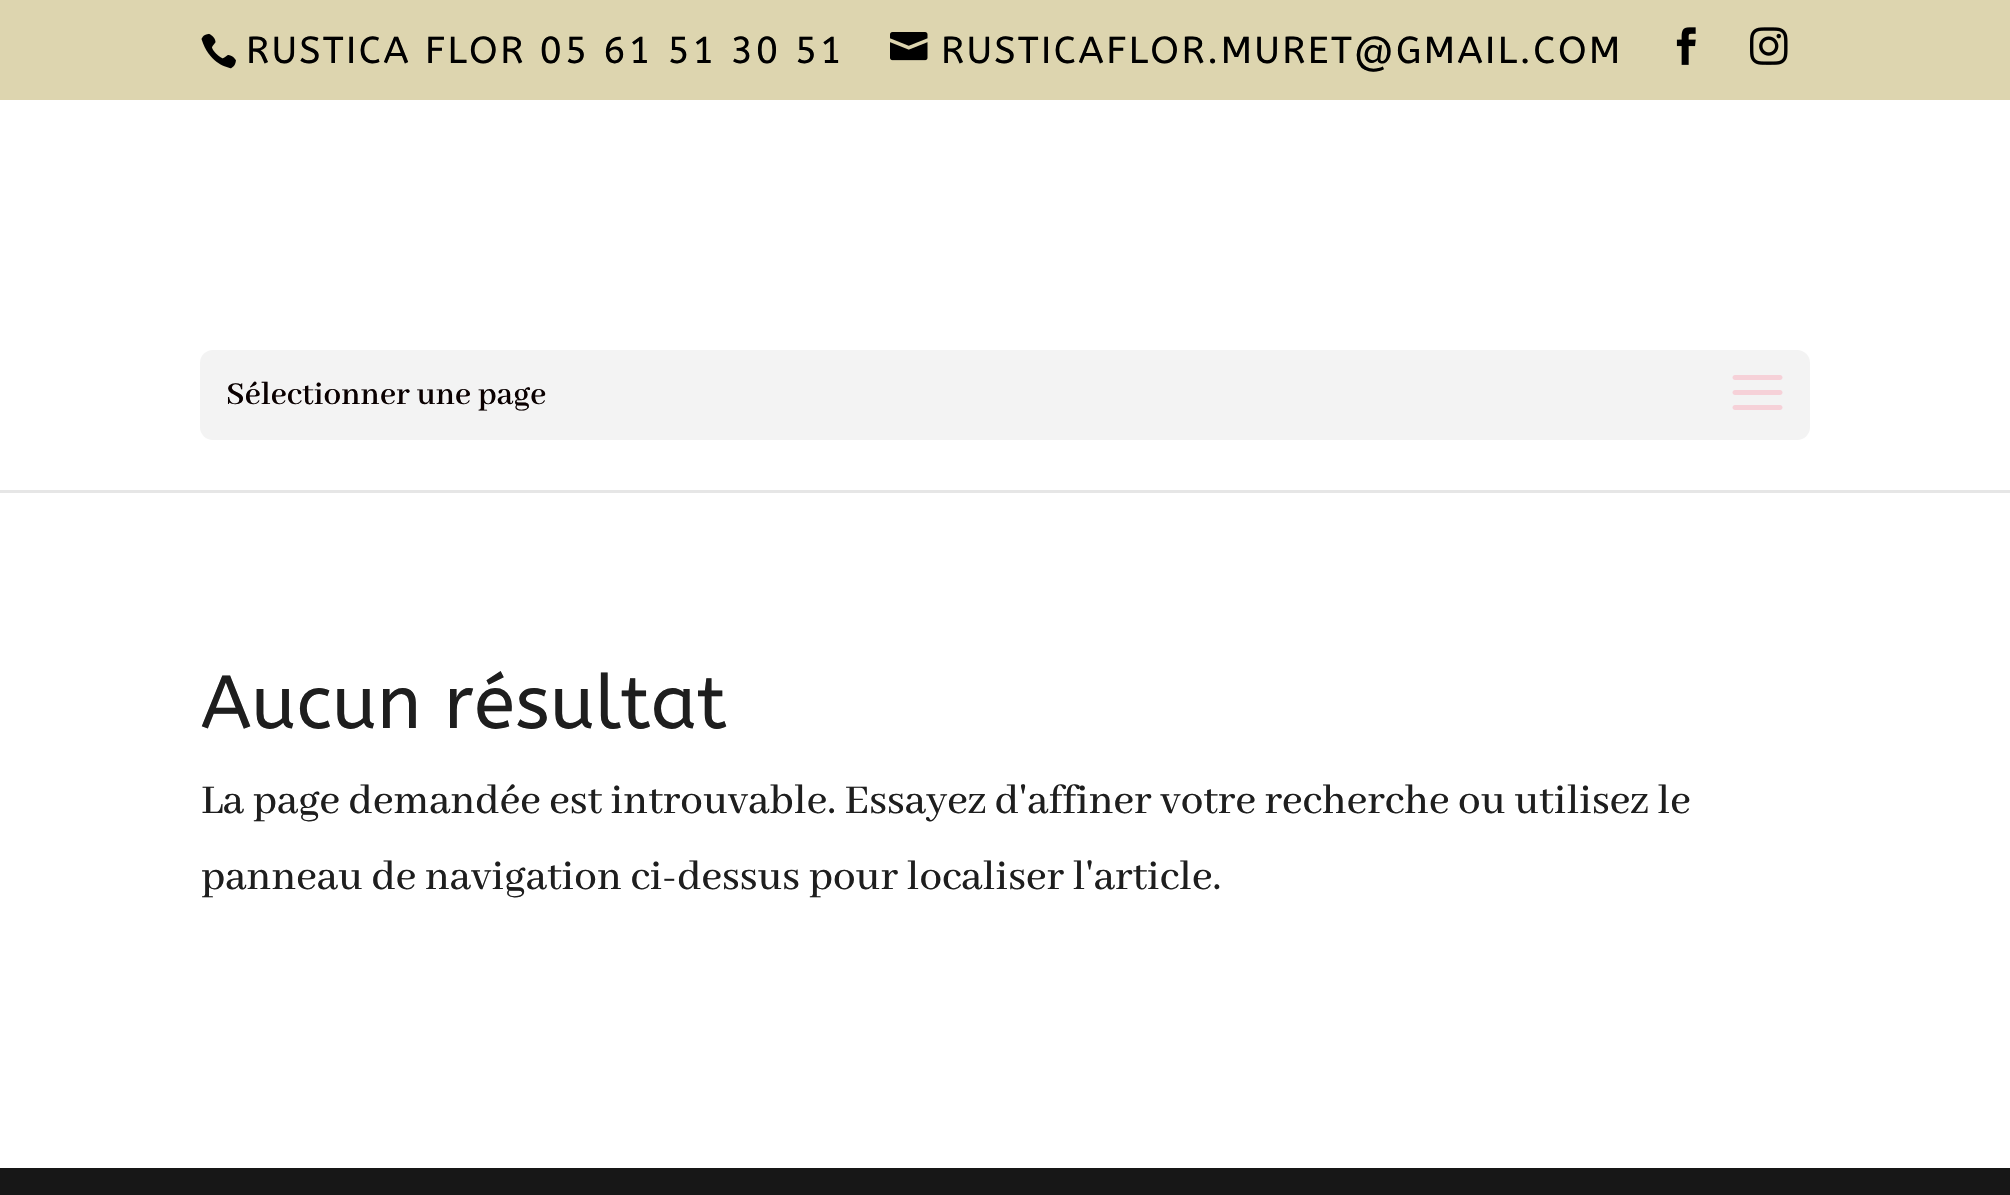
void draw(SkCanvas* canvas) {
    SkPaint paint;
    paint.setAntiAlias(true);
    auto spacedText = [&](const char* s, float x, float y, const SkFont& font, const SkPaint& ink, float letter, float word) {
        std::vector<SkGlyphID> glyphs(font.countText(s, strlen(s), SkTextEncoding::kUTF8));
        std::vector<float> xs(glyphs.size());
        font.textToGlyphs(s, strlen(s), SkTextEncoding::kUTF8, glyphs);
        font.getXPos(glyphs, xs, x);
        float extra = 0;
        for (size_t i = 0; i < glyphs.size(); i++) {
            xs[i] += extra;
            extra += letter + word * (glyphs[i] == font.unicharToGlyph(' '));
        }
        canvas->drawTextBlob(SkTextBlob::MakeFromPosHGlyphs(glyphs, xs, y, font), 0, 0, ink);
    };
    canvas->clear(0xFFFFFFFF);
    paint.setColor(0xFFDDD5AF);
    canvas->drawRect(SkRect::MakeXYWH(0, 0, 2010, 100), paint);
    canvas->drawImageRect(SkImages::DeferredFromEncodedData(SkData::MakeFromFileName("img1.png")), SkRect::MakeXYWH(201, 33, 35, 36), SkSamplingOptions());
    SkFont font1(fontMgr->matchFamilyStyle("ABeeZee", SkFontStyle::Normal()), 37.5f);
    font1.setSubpixel(true);
    paint.setColor(0xFF000000);
    spacedText("RUSTICA FLOR 05 61 51 30 51", 246, 63, font1, paint, 2.5f, 0);
    canvas->drawImageRect(SkImages::DeferredFromEncodedData(SkData::MakeFromFileName("img2.png")), SkRect::MakeXYWH(890, 32, 38, 29), SkSamplingOptions());
    spacedText("RUSTICAFLOR.MURET@GMAIL.COM", 941, 63, font1, paint, 2.5f, 0);
    canvas->drawImageRect(SkImages::DeferredFromEncodedData(SkData::MakeFromFileName("img3.png")), SkRect::MakeXYWH(1676, 27, 20, 38), SkSamplingOptions());
    canvas->drawImageRect(SkImages::DeferredFromEncodedData(SkData::MakeFromFileName("img4.png")), SkRect::MakeXYWH(1750, 27, 38, 38), SkSamplingOptions());
    paint.setColor(0xFFE6E6E6);
    canvas->drawRect(SkRect::MakeXYWH(0, 490, 2010, 3), paint);
    paint.setColor(0xFFF3F3F3);
    canvas->drawRoundRect(SkRect::MakeXYWH(200, 350, 1610, 90), 13, 13, paint);
    SkFont font2(fontMgr->matchFamilyStyle("Abhaya Libre SemiBold", SkFontStyle(600, SkFontStyle::kNormal_Width, SkFontStyle::kUpright_Slant)), 35);
    font2.setSubpixel(true);
    paint.setColor(0xFF0A0000);
    canvas->drawString("Sélectionner une page", 226, 404, font2, paint);
    canvas->drawImageRect(SkImages::DeferredFromEncodedData(SkData::MakeFromFileName("img5.png")), SkRect::MakeXYWH(1732, 375, 51, 35), SkSamplingOptions());
    SkFont font3(fontMgr->matchFamilyStyle("ABeeZee", SkFontStyle::Normal()), 75);
    font3.setSubpixel(true);
    paint.setColor(0xFF1E1E1E);
    canvas->drawString("Aucun résultat", 201, 728, font3, paint);
    SkFont font4(fontMgr->matchFamilyStyle("Abhaya Libre Medium", SkFontStyle(500, SkFontStyle::kNormal_Width, SkFontStyle::kUpright_Slant)), 45);
    font4.setSubpixel(true);
    canvas->drawString("La page demandée est introuvable. Essayez d'affiner votre recherche ou utilisez le", 201, 813, font4, paint);
    canvas->drawString("panneau de navigation ci-dessus pour localiser l'article.", 201, 889, font4, paint);
    paint.setColor(0xFF171717);
    canvas->drawRect(SkRect::MakeXYWH(0, 1168, 2010, 27), paint);
}
